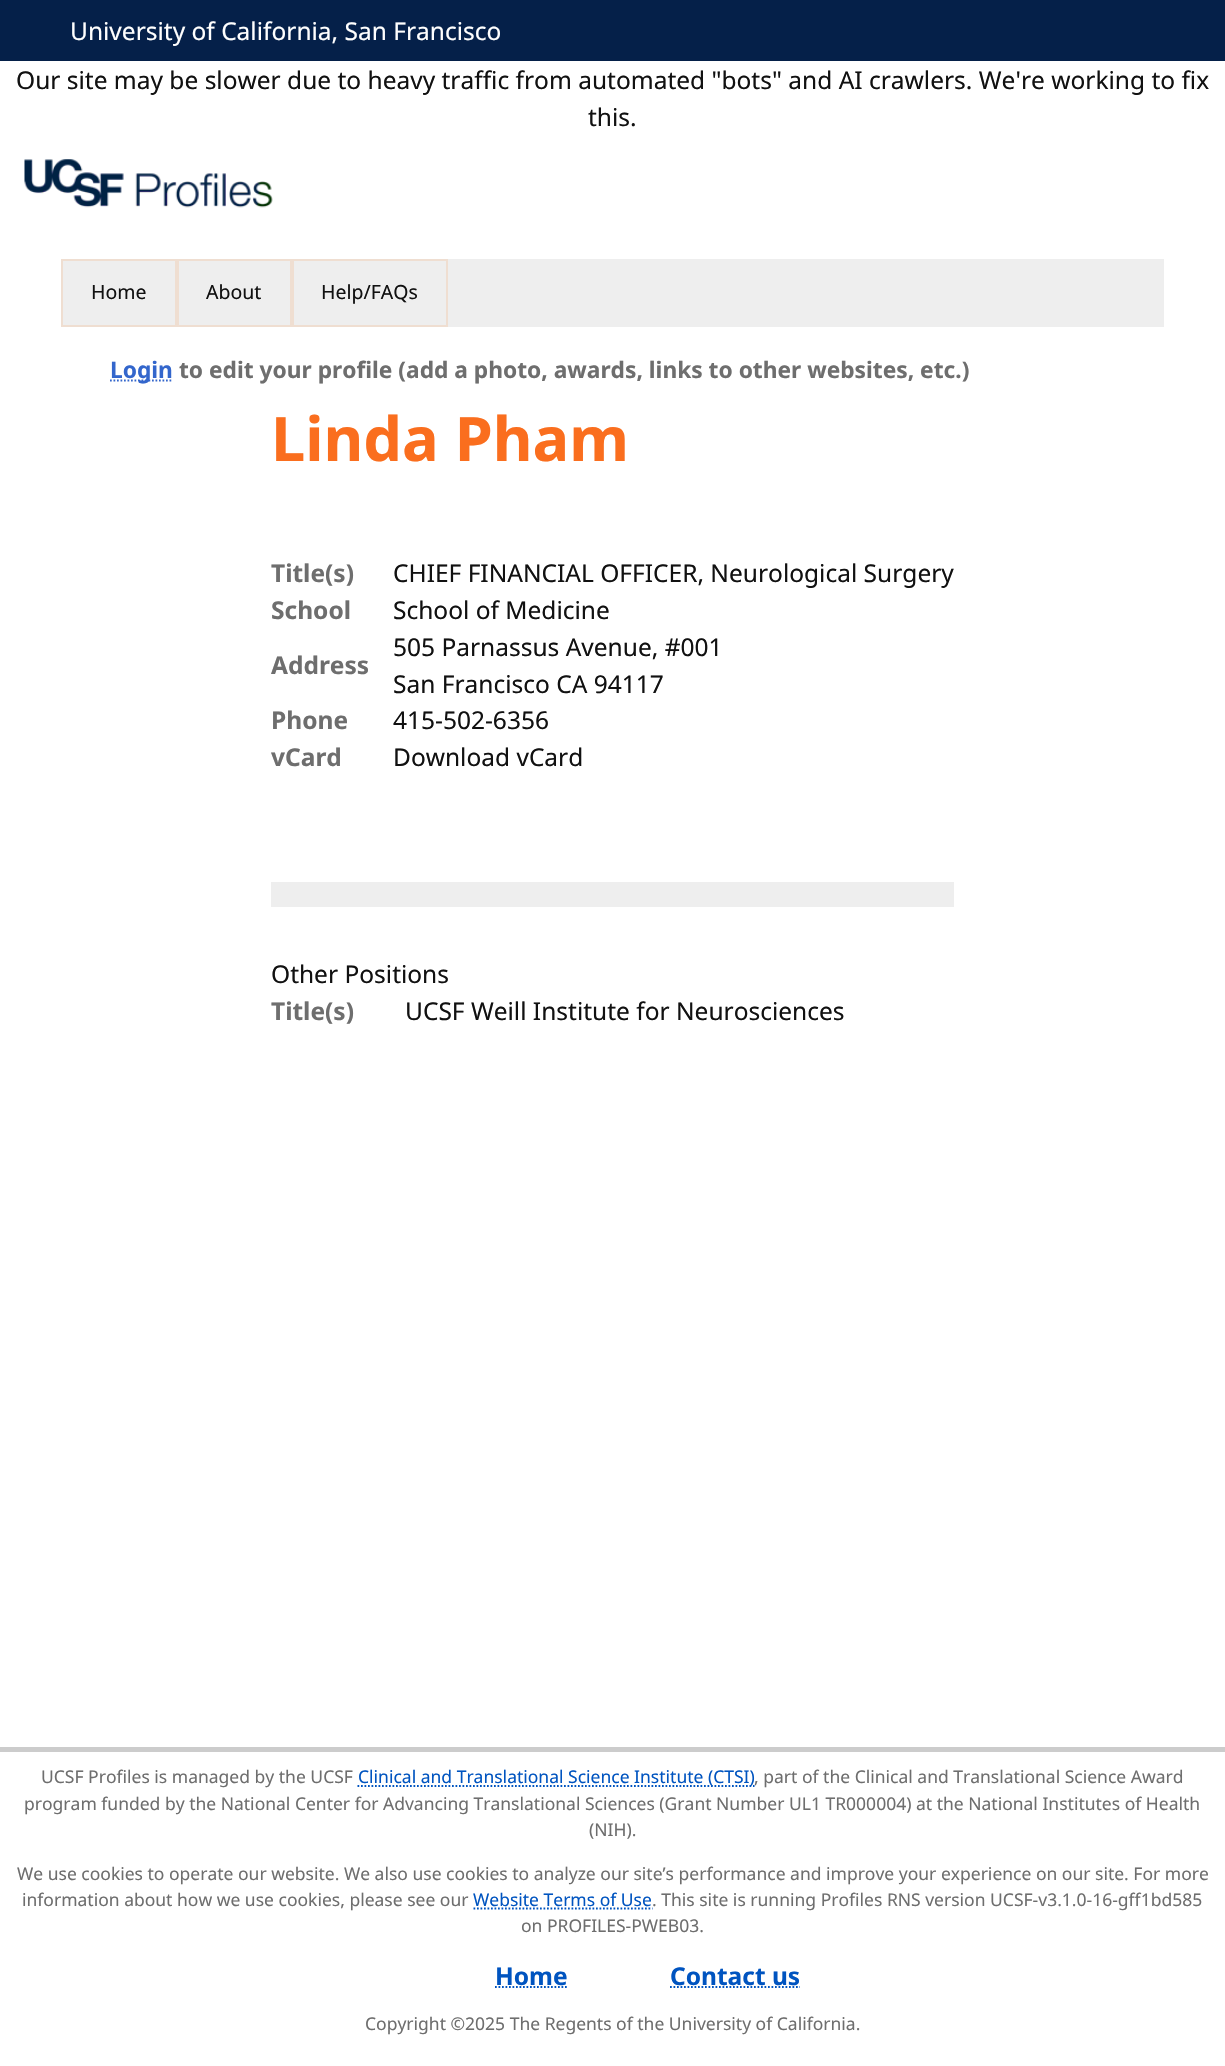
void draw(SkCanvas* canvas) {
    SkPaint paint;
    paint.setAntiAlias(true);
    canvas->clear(0xFFFFFFFF);
    paint.setColor(0xFF052049);
    canvas->drawRect(SkRect::MakeXYWH(0, 0, 1225, 61), paint);
    SkFont font1(fontMgr->matchFamilyStyle("Noto Sans", SkFontStyle::Normal()), 24.5f);
    font1.setSubpixel(true);
    paint.setColor(0xFFFFFFFF);
    canvas->drawString("University of California, San Francisco", 70, 40, font1, paint);
    paint.setColor(0xFF111111);
    canvas->drawString("Our site may be slower due to heavy traffic from automated \"bots\" and AI crawlers. We're working to fix", 16, 89, font1, paint);
    canvas->drawString("this.", 588, 126, font1, paint);
    canvas->drawImageRect(SkImages::DeferredFromEncodedData(SkData::MakeFromFileName("img1.png")), SkRect::MakeXYWH(24, 159, 249, 49), SkSamplingOptions());
    paint.setColor(0xFFEEEEEE);
    canvas->drawRect(SkRect::MakeXYWH(63, 259, 1101, 68), paint);
    paint.setStyle(SkPaint::kStroke_Style);
    paint.setStrokeWidth(2);
    paint.setColor(0xFFEFDED1);
    canvas->drawRect(SkRect::MakeXYWH(62, 260, 114, 66), paint);
    SkFont font2(fontMgr->matchFamilyStyle("Noto Sans", SkFontStyle::Normal()), 19.5f);
    font2.setSubpixel(true);
    paint.setStyle(SkPaint::kFill_Style);
    paint.setColor(0xFF111111);
    canvas->drawString("Home", 91, 299, font2, paint);
    paint.setStyle(SkPaint::kStroke_Style);
    paint.setColor(0xFFEFDED1);
    canvas->drawRect(SkRect::MakeXYWH(178, 260, 113, 66), paint);
    paint.setStyle(SkPaint::kFill_Style);
    paint.setColor(0xFF111111);
    canvas->drawString("About", 206, 299, font2, paint);
    paint.setStyle(SkPaint::kStroke_Style);
    paint.setColor(0xFFEFDED1);
    canvas->drawRect(SkRect::MakeXYWH(293, 260, 154, 66), paint);
    paint.setStyle(SkPaint::kFill_Style);
    paint.setColor(0xFF111111);
    canvas->drawString("Help/FAQs", 321, 299, font2, paint);
    paint.setStyle(SkPaint::kStroke_Style);
    paint.setStrokeWidth(1.8f);
    paint.setColor(0xFF3366CC);
    paint.setPathEffect(SkDashPathEffect::Make({{1.75f, 1.75f}}, 0));
    canvas->drawPath(SkPathBuilder().moveTo(110, 380.5f).lineTo(173, 380.5f).detach(), paint);
    paint.setPathEffect(nullptr);
    SkFont font3(fontMgr->matchFamilyStyle("Noto Sans", SkFontStyle::Bold()), 22.75f);
    font3.setSubpixel(true);
    paint.setStyle(SkPaint::kFill_Style);
    canvas->drawString("Login", 110, 378, font3, paint);
    paint.setColor(0xFF6E6E6E);
    canvas->drawString("to edit your profile (add a photo, awards, links to other websites, etc.)", 179, 378, font3, paint);
    SkFont font4(fontMgr->matchFamilyStyle("Noto Sans", SkFontStyle::Bold()), 61.25f);
    font4.setSubpixel(true);
    paint.setColor(0xFFFA6E1E);
    canvas->drawString("Linda Pham", 271, 461, font4, paint);
    SkFont font5(fontMgr->matchFamilyStyle("Noto Sans", SkFontStyle::Bold()), 24.5f);
    font5.setSubpixel(true);
    paint.setColor(0xFF6E6E6E);
    canvas->drawString("Title(s)", 271, 582, font5, paint);
    paint.setColor(0xFF111111);
    canvas->drawString("CHIEF FINANCIAL OFFICER, Neurological Surgery", 393, 582, font1, paint);
    paint.setColor(0xFF6E6E6E);
    canvas->drawString("School", 271, 619, font5, paint);
    paint.setColor(0xFF111111);
    canvas->drawString("School of Medicine", 393, 619, font1, paint);
    paint.setColor(0xFF6E6E6E);
    canvas->drawString("Address", 271, 674, font5, paint);
    paint.setColor(0xFF111111);
    canvas->drawString("505 Parnassus Avenue, #001", 393, 656, font1, paint);
    canvas->drawString("San Francisco CA 94117", 393, 693, font1, paint);
    paint.setColor(0xFF6E6E6E);
    canvas->drawString("Phone", 271, 729, font5, paint);
    paint.setColor(0xFF111111);
    canvas->drawString("415-502-6356", 393, 729, font1, paint);
    paint.setColor(0xFF6E6E6E);
    canvas->drawString("vCard", 271, 766, font5, paint);
    paint.setColor(0xFF111111);
    canvas->drawString("Download vCard", 393, 766, font1, paint);
    paint.setColor(0xFFEEEEEE);
    canvas->drawRect(SkRect::MakeXYWH(271, 882, 683, 25), paint);
    paint.setColor(0xFF111111);
    canvas->drawString("Other Positions", 271, 983, font1, paint);
    paint.setColor(0xFF6E6E6E);
    canvas->drawString("Title(s)", 271, 1020, font5, paint);
    paint.setColor(0xFF111111);
    canvas->drawString("UCSF Weill Institute for Neurosciences", 405, 1020, font1, paint);
    paint.setColor(0xFFCCCCCC);
    canvas->drawRect(SkRect::MakeXYWH(0, 1747, 1225, 5), paint);
    SkFont font6(fontMgr->matchFamilyStyle("Noto Sans", SkFontStyle::Normal()), 17.5f);
    font6.setSubpixel(true);
    paint.setColor(0xFF6E6E6E);
    canvas->drawString("UCSF Profiles is managed by the UCSF", 41, 1783, font6, paint);
    paint.setStyle(SkPaint::kStroke_Style);
    paint.setColor(0xFF0054C0);
    paint.setPathEffect(SkDashPathEffect::Make({{1.75f, 1.75f}}, 0));
    canvas->drawPath(SkPathBuilder().moveTo(357.5f, 1786).lineTo(754.5f, 1786).detach(), paint);
    paint.setPathEffect(nullptr);
    paint.setStyle(SkPaint::kFill_Style);
    canvas->drawString("Clinical and Translational Science Institute (CTSI)", 358, 1783, font6, paint);
    paint.setColor(0xFF6E6E6E);
    canvas->drawString(", part of the Clinical and Translational Science Award", 754, 1783, font6, paint);
    canvas->drawString("program funded by the National Center for Advancing Translational Sciences (Grant Number UL1 TR000004) at the National Institutes of Health", 24, 1810, font6, paint);
    canvas->drawString("(NIH).", 589, 1836, font6, paint);
    canvas->drawString("We use cookies to operate our website. We also use cookies to analyze our site’s performance and improve your experience on our site. For more", 17, 1880, font6, paint);
    canvas->drawString("information about how we use cookies, please see our", 22, 1906, font6, paint);
    paint.setColor(0xFF0054C0);
    canvas->drawString("Website Terms of Use", 473, 1906, font6, paint);
    paint.setStyle(SkPaint::kStroke_Style);
    paint.setPathEffect(SkDashPathEffect::Make({{1.75f, 1.75f}}, 0));
    canvas->drawPath(SkPathBuilder().moveTo(473.5f, 1908.5f).lineTo(652.5f, 1908.5f).detach(), paint);
    paint.setPathEffect(nullptr);
    paint.setStyle(SkPaint::kFill_Style);
    paint.setColor(0xFF6E6E6E);
    canvas->drawString(". This site is running Profiles RNS version UCSF-v3.1.0-16-gff1bd585", 652, 1906, font6, paint);
    canvas->drawString("on PROFILES-PWEB03.", 521, 1932, font6, paint);
    paint.setColor(0xFF0054C0);
    canvas->drawString("Home", 495, 1985, font5, paint);
    paint.setStyle(SkPaint::kStroke_Style);
    paint.setPathEffect(SkDashPathEffect::Make({{1.75f, 1.75f}}, 0));
    canvas->drawPath(SkPathBuilder().moveTo(495, 1987).lineTo(567.5f, 1987).detach(), paint);
    paint.setPathEffect(nullptr);
    paint.setStyle(SkPaint::kFill_Style);
    canvas->drawString("Contact us", 670, 1985, font5, paint);
    paint.setStyle(SkPaint::kStroke_Style);
    paint.setPathEffect(SkDashPathEffect::Make({{1.75f, 1.75f}}, 0));
    canvas->drawPath(SkPathBuilder().moveTo(670, 1987).lineTo(800, 1987).detach(), paint);
    paint.setPathEffect(nullptr);
    paint.setStyle(SkPaint::kFill_Style);
    paint.setColor(0xFF6E6E6E);
    canvas->drawString("Copyright ©2025 The Regents of the University of California.", 365, 2030, font6, paint);
}
